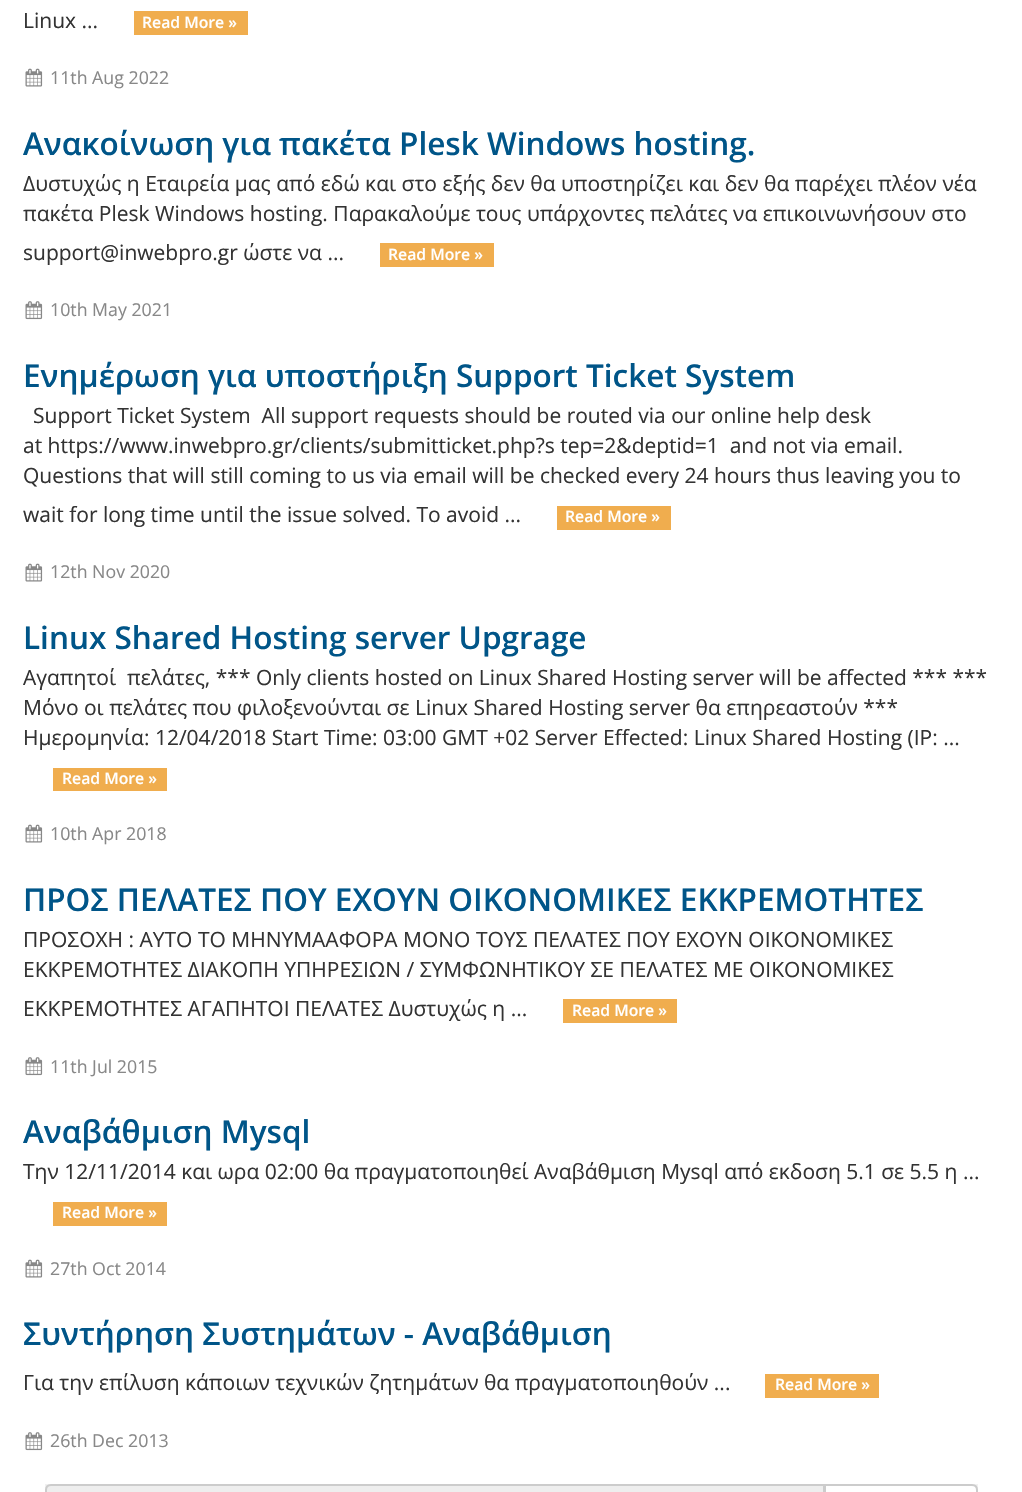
void draw(SkCanvas* canvas) {
    SkPaint paint;
    paint.setAntiAlias(true);
    canvas->clear(0xFFFFFFFF);
    SkFont font1(fontMgr->matchFamilyStyle("Open Sans", SkFontStyle::Normal()), 21);
    font1.setSubpixel(true);
    paint.setColor(0xFF333333);
    canvas->drawString("Linux ...", 23, 28, font1, paint);
    paint.setColor(0xFFF0AD4E);
    canvas->drawRect(SkRect::MakeXYWH(134, 11, 114, 24), paint);
    SkFont font2(fontMgr->matchFamilyStyle("Open Sans", SkFontStyle(600, SkFontStyle::kNormal_Width, SkFontStyle::kUpright_Slant)), 15.75f);
    font2.setSubpixel(true);
    paint.setColor(0xFFFFFFFF);
    canvas->drawString("Read More »", 142, 28, font2, paint);
    canvas->drawImageRect(SkImages::DeferredFromEncodedData(SkData::MakeFromFileName("img1.png")), SkRect::MakeXYWH(25, 68, 18, 19), SkSamplingOptions());
    SkFont font3(fontMgr->matchFamilyStyle("Open Sans", SkFontStyle::Normal()), 17.75f);
    font3.setSubpixel(true);
    paint.setColor(0xFF888888);
    canvas->drawString("11th Aug 2022", 50, 84, font3, paint);
    SkFont font4(fontMgr->matchFamilyStyle("Open Sans", SkFontStyle(600, SkFontStyle::kNormal_Width, SkFontStyle::kUpright_Slant)), 31.5f);
    font4.setSubpixel(true);
    paint.setColor(0xFF005588);
    canvas->drawString("Ανακοίνωση για πακέτα Plesk Windows hosting.", 23, 155, font4, paint);
    paint.setColor(0xFF333333);
    canvas->drawString("Δυστυχώς η Εταιρεία μας από εδώ και στο εξής δεν θα υποστηρίζει και δεν θα παρέχει πλέον νέα", 23, 191, font1, paint);
    canvas->drawString("πακέτα Plesk Windows hosting. Παρακαλούμε τους υπάρχοντες πελάτες να επικοινωνήσουν στο", 23, 221, font1, paint);
    canvas->drawString("support@inwebpro.gr ώστε να ...", 23, 260, font1, paint);
    paint.setColor(0xFFF0AD4E);
    canvas->drawRect(SkRect::MakeXYWH(380, 243, 114, 24), paint);
    paint.setColor(0xFFFFFFFF);
    canvas->drawString("Read More »", 388, 260, font2, paint);
    canvas->drawImageRect(SkImages::DeferredFromEncodedData(SkData::MakeFromFileName("img2.png")), SkRect::MakeXYWH(25, 301, 18, 19), SkSamplingOptions());
    paint.setColor(0xFF888888);
    canvas->drawString("10th May 2021", 50, 316, font3, paint);
    paint.setColor(0xFF005588);
    canvas->drawString("Ενημέρωση για υποστήριξη Support Ticket System", 23, 387, font4, paint);
    paint.setColor(0xFF333333);
    canvas->drawString("Support Ticket System  Αll support requests should be routed via our online help desk", 33, 423, font1, paint);
    canvas->drawString("at https://www.inwebpro.gr/clients/submitticket.php?s tep=2&deptid=1  and not via email.", 23, 453, font1, paint);
    canvas->drawString("Questions that will still coming to us via email will be checked every 24 hours thus leaving you to", 23, 483, font1, paint);
    canvas->drawString("wait for long time until the issue solved. To avoid ...", 23, 522, font1, paint);
    paint.setColor(0xFFF0AD4E);
    canvas->drawRect(SkRect::MakeXYWH(557, 506, 114, 24), paint);
    paint.setColor(0xFFFFFFFF);
    canvas->drawString("Read More »", 565, 522, font2, paint);
    canvas->drawImageRect(SkImages::DeferredFromEncodedData(SkData::MakeFromFileName("img1.png")), SkRect::MakeXYWH(25, 563, 18, 19), SkSamplingOptions());
    paint.setColor(0xFF888888);
    canvas->drawString("12th Nov 2020", 50, 578, font3, paint);
    paint.setColor(0xFF005588);
    canvas->drawString("Linux Shared Hosting server Upgrage", 23, 649, font4, paint);
    paint.setColor(0xFF333333);
    canvas->drawString("Αγαπητοί  πελάτες, *** Only clients hosted on Linux Shared Hosting server will be affected *** ***", 23, 685, font1, paint);
    canvas->drawString("Μόνο οι πελάτες που φιλοξενούνται σε Linux Shared Hosting server θα επηρεαστούν ***", 23, 715, font1, paint);
    canvas->drawString("Ημερομηνία: 12/04/2018 Start Time: 03:00 GMT +02 Server Effected: Linux Shared Hosting (IP: ...", 23, 745, font1, paint);
    paint.setColor(0xFFF0AD4E);
    canvas->drawRect(SkRect::MakeXYWH(53, 768, 114, 23), paint);
    paint.setColor(0xFFFFFFFF);
    canvas->drawString("Read More »", 62, 784, font2, paint);
    canvas->drawImageRect(SkImages::DeferredFromEncodedData(SkData::MakeFromFileName("img1.png")), SkRect::MakeXYWH(25, 824, 18, 19), SkSamplingOptions());
    paint.setColor(0xFF888888);
    canvas->drawString("10th Apr 2018", 50, 840, font3, paint);
    paint.setColor(0xFF005588);
    canvas->drawString("ΠΡΟΣ ΠΕΛΑΤΕΣ ΠΟΥ ΕΧΟΥΝ ΟΙΚΟΝΟΜΙΚΕΣ ΕΚΚΡΕΜΟΤΗΤΕΣ", 23, 911, font4, paint);
    paint.setColor(0xFF333333);
    canvas->drawString("ΠΡΟΣΟΧΗ : ΑΥΤΟ ΤΟ ΜΗΝΥΜΑΑΦΟΡΑ ΜΟΝΟ ΤΟΥΣ ΠΕΛΑΤΕΣ ΠΟΥ ΕΧΟΥΝ ΟΙΚΟΝΟΜΙΚΕΣ", 23, 947, font1, paint);
    canvas->drawString("ΕΚΚΡΕΜΟΤΗΤΕΣ ΔΙΑΚΟΠΗ ΥΠΗΡΕΣΙΩΝ / ΣΥΜΦΩΝΗΤΙΚΟΥ ΣΕ ΠΕΛΑΤΕΣ ΜΕ ΟΙΚΟΝΟΜΙΚΕΣ", 23, 977, font1, paint);
    canvas->drawString("ΕΚΚΡΕΜΟΤΗΤΕΣ ΑΓΑΠΗΤΟΙ ΠΕΛΑΤΕΣ Δυστυχώς η ...", 23, 1016, font1, paint);
    paint.setColor(0xFFF0AD4E);
    canvas->drawRect(SkRect::MakeXYWH(563, 999, 114, 24), paint);
    paint.setColor(0xFFFFFFFF);
    canvas->drawString("Read More »", 572, 1016, font2, paint);
    canvas->drawImageRect(SkImages::DeferredFromEncodedData(SkData::MakeFromFileName("img2.png")), SkRect::MakeXYWH(25, 1057, 18, 19), SkSamplingOptions());
    paint.setColor(0xFF888888);
    canvas->drawString("11th Jul 2015", 50, 1073, font3, paint);
    paint.setColor(0xFF005588);
    canvas->drawString("Αναβάθμιση Mysql", 23, 1143, font4, paint);
    paint.setColor(0xFF333333);
    canvas->drawString("Την 12/11/2014 και ωρα 02:00 θα πραγματοποιηθεί Αναβάθμιση Mysql από εκδοση 5.1 σε 5.5 η ...", 23, 1179, font1, paint);
    paint.setColor(0xFFF0AD4E);
    canvas->drawRect(SkRect::MakeXYWH(53, 1202, 114, 24), paint);
    paint.setColor(0xFFFFFFFF);
    canvas->drawString("Read More »", 62, 1218, font2, paint);
    canvas->drawImageRect(SkImages::DeferredFromEncodedData(SkData::MakeFromFileName("img1.png")), SkRect::MakeXYWH(25, 1259, 18, 19), SkSamplingOptions());
    paint.setColor(0xFF888888);
    canvas->drawString("27th Oct 2014", 50, 1275, font3, paint);
    paint.setColor(0xFF005588);
    canvas->drawString("Συντήρηση Συστημάτων - Αναβάθμιση", 23, 1345, font4, paint);
    paint.setColor(0xFF333333);
    canvas->drawString("Για την επίλυση κάποιων τεχνικών ζητημάτων θα πραγματοποιηθούν ...", 23, 1390, font1, paint);
    paint.setColor(0xFFF0AD4E);
    canvas->drawRect(SkRect::MakeXYWH(765, 1374, 114, 24), paint);
    paint.setColor(0xFFFFFFFF);
    canvas->drawString("Read More »", 775, 1390, font2, paint);
    canvas->drawImageRect(SkImages::DeferredFromEncodedData(SkData::MakeFromFileName("img2.png")), SkRect::MakeXYWH(25, 1432, 18, 19), SkSamplingOptions());
    paint.setColor(0xFF888888);
    canvas->drawString("26th Dec 2013", 50, 1447, font3, paint);
    paint.setColor(0xFFF1F1F1);
    canvas->drawRect(SkRect::MakeXYWH(45, 1484, 933, 6), paint);
    paint.setColor(0xFFEEEEEE);
    canvas->drawPath(SkPathBuilder().moveTo(51, 1485).lineTo(824, 1485).lineTo(824, 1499).lineTo(51, 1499).cubicTo(48, 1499, 46, 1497, 46, 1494).lineTo(46, 1490).cubicTo(46, 1487, 48, 1485, 51, 1485).close().detach(), paint);
    paint.setStyle(SkPaint::kStroke_Style);
    paint.setStrokeWidth(2);
    paint.setColor(0xFFCCCCCC);
    canvas->drawPath(SkPathBuilder().moveTo(51, 1485).lineTo(824, 1485).lineTo(824, 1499).lineTo(51, 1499).cubicTo(48, 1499, 46, 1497, 46, 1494).lineTo(46, 1490).cubicTo(46, 1487, 48, 1485, 51, 1485).close().detach(), paint);
    paint.setStyle(SkPaint::kFill_Style);
    paint.setColor(0xFFFFFFFF);
    canvas->drawPath(SkPathBuilder().moveTo(825, 1485).lineTo(972, 1485).cubicTo(975, 1485, 977, 1487, 977, 1490).lineTo(977, 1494).cubicTo(977, 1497, 975, 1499, 972, 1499).lineTo(825, 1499).close().detach(), paint);
    paint.setStyle(SkPaint::kStroke_Style);
    paint.setColor(0xFFCCCCCC);
    canvas->drawPath(SkPathBuilder().moveTo(825, 1485).lineTo(972, 1485).cubicTo(975, 1485, 977, 1487, 977, 1490).lineTo(977, 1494).cubicTo(977, 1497, 975, 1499, 972, 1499).lineTo(825, 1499).close().detach(), paint);
}
